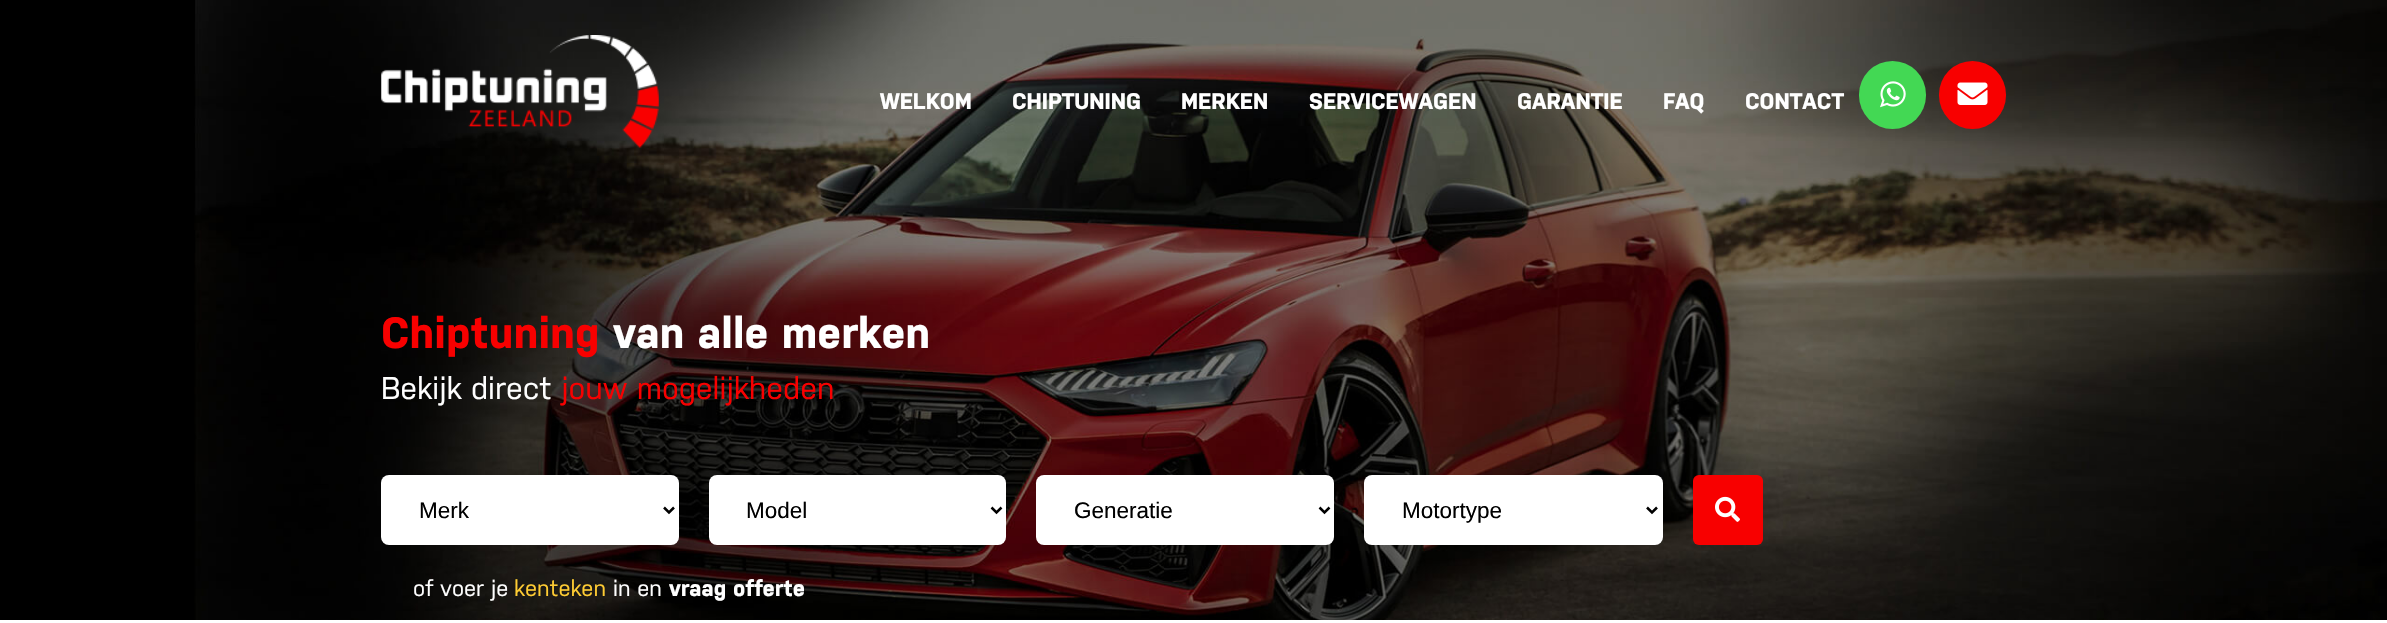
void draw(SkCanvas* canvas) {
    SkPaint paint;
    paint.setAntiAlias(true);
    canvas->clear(0xFFFFFFFF);
    canvas->drawImageRect(SkImages::DeferredFromEncodedData(SkData::MakeFromFileName("img4.png")), SkRect::MakeXYWH(0, 0, 2387, 620), SkSamplingOptions());
    canvas->drawImageRect(SkImages::DeferredFromEncodedData(SkData::MakeFromFileName("img1.png")), SkRect::MakeXYWH(381, 35, 278, 113), SkSamplingOptions());
    SkFont font1(fontMgr->matchFamilyStyle("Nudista", SkFontStyle::Bold()), 22.5f);
    font1.setSubpixel(true);
    paint.setColor(0xFFFFFFFF);
    canvas->drawString("WELKOM", 880, 109, font1, paint);
    canvas->drawString("CHIPTUNING", 1012, 109, font1, paint);
    canvas->drawString("MERKEN", 1181, 109, font1, paint);
    canvas->drawString("SERVICEWAGEN", 1309, 109, font1, paint);
    canvas->drawString("GARANTIE", 1517, 109, font1, paint);
    canvas->drawString("FAQ", 1663, 109, font1, paint);
    canvas->drawString("CONTACT", 1745, 109, font1, paint);
    paint.setColor(0xFF43D854);
    canvas->drawRoundRect(SkRect::MakeXYWH(1859, 61, 67, 68), 33.5f, 33.5f, paint);
    canvas->drawImageRect(SkImages::DeferredFromEncodedData(SkData::MakeFromFileName("img2.png")), SkRect::MakeXYWH(1880, 81, 26, 27), SkSamplingOptions());
    paint.setColor(0xFFF80000);
    canvas->drawRoundRect(SkRect::MakeXYWH(1939, 61, 67, 68), 33.5f, 33.5f, paint);
    canvas->drawImageRect(SkImages::DeferredFromEncodedData(SkData::MakeFromFileName("img3.png")), SkRect::MakeXYWH(1957, 82, 31, 23), SkSamplingOptions());
    SkFont font2(fontMgr->matchFamilyStyle("Nudista", SkFontStyle::Bold()), 43.75f);
    font2.setSubpixel(true);
    canvas->drawString("Chiptuning", 381, 348, font2, paint);
    paint.setColor(0xFFFFFFFF);
    canvas->drawString("van alle merken", 613, 348, font2, paint);
    SkFont font3(fontMgr->matchFamilyStyle("Nudista", SkFontStyle(500, SkFontStyle::kNormal_Width, SkFontStyle::kUpright_Slant)), 31.25f);
    font3.setSubpixel(true);
    canvas->drawString("Bekijk direct", 381, 399, font3, paint);
    paint.setColor(0xFFF80000);
    canvas->drawString("jouw mogelijkheden", 561, 399, font3, paint);
    paint.setColor(0xFFFFFFFF);
    canvas->drawRoundRect(SkRect::MakeXYWH(381, 475, 298, 70), 8, 8, paint);
    paint.setStyle(SkPaint::kStroke_Style);
    paint.setStrokeWidth(2.5f);
    paint.setColor(0xFF000000);
    canvas->drawPath(SkPathBuilder().moveTo(664, 507.5f).lineTo(669, 512.5f).lineTo(674, 507.5f).detach(), paint);
    SkFont font4(fontMgr->matchFamilyStyle("Liberation Sans", SkFontStyle::Normal()), 22.5f);
    font4.setSubpixel(true);
    paint.setStyle(SkPaint::kFill_Style);
    canvas->drawString("Merk", 419, 518, font4, paint);
    paint.setColor(0xFFFFFFFF);
    canvas->drawRoundRect(SkRect::MakeXYWH(709, 475, 297, 70), 8, 8, paint);
    paint.setStyle(SkPaint::kStroke_Style);
    paint.setColor(0xFF000000);
    canvas->drawPath(SkPathBuilder().moveTo(991.5f, 507.5f).lineTo(996.5f, 512.5f).lineTo(1001.5f, 507.5f).detach(), paint);
    paint.setStyle(SkPaint::kFill_Style);
    canvas->drawString("Model", 746, 518, font4, paint);
    paint.setColor(0xFFFFFFFF);
    canvas->drawRoundRect(SkRect::MakeXYWH(1036, 475, 298, 70), 8, 8, paint);
    paint.setStyle(SkPaint::kStroke_Style);
    paint.setColor(0xFF000000);
    canvas->drawPath(SkPathBuilder().moveTo(1319.5f, 507.5f).lineTo(1324.5f, 512.5f).lineTo(1329.5f, 507.5f).detach(), paint);
    paint.setStyle(SkPaint::kFill_Style);
    canvas->drawString("Generatie", 1074, 518, font4, paint);
    paint.setColor(0xFFFFFFFF);
    canvas->drawRoundRect(SkRect::MakeXYWH(1364, 475, 299, 70), 8, 8, paint);
    paint.setStyle(SkPaint::kStroke_Style);
    paint.setColor(0xFF000000);
    canvas->drawPath(SkPathBuilder().moveTo(1647, 507.5f).lineTo(1652, 512.5f).lineTo(1657, 507.5f).detach(), paint);
    paint.setStyle(SkPaint::kFill_Style);
    canvas->drawString("Motortype", 1402, 518, font4, paint);
    paint.setColor(0xFFF80000);
    canvas->drawRoundRect(SkRect::MakeXYWH(1693, 475, 70, 70), 6, 6, paint);
    canvas->drawImageRect(SkImages::DeferredFromEncodedData(SkData::MakeFromFileName("img5.png")), SkRect::MakeXYWH(1715, 496, 25, 26), SkSamplingOptions());
    SkFont font5(fontMgr->matchFamilyStyle("Nudista", SkFontStyle(500, SkFontStyle::kNormal_Width, SkFontStyle::kUpright_Slant)), 22.5f);
    font5.setSubpixel(true);
    paint.setColor(0xFFFFFFFF);
    canvas->drawString("of voer je", 413, 596, font5, paint);
    paint.setColor(0xFFFFCC33);
    canvas->drawString("kenteken", 514, 596, font5, paint);
    paint.setColor(0xFFFFFFFF);
    canvas->drawString("in en", 613, 596, font5, paint);
    canvas->drawString("vraag offerte", 669, 596, font1, paint);
}
